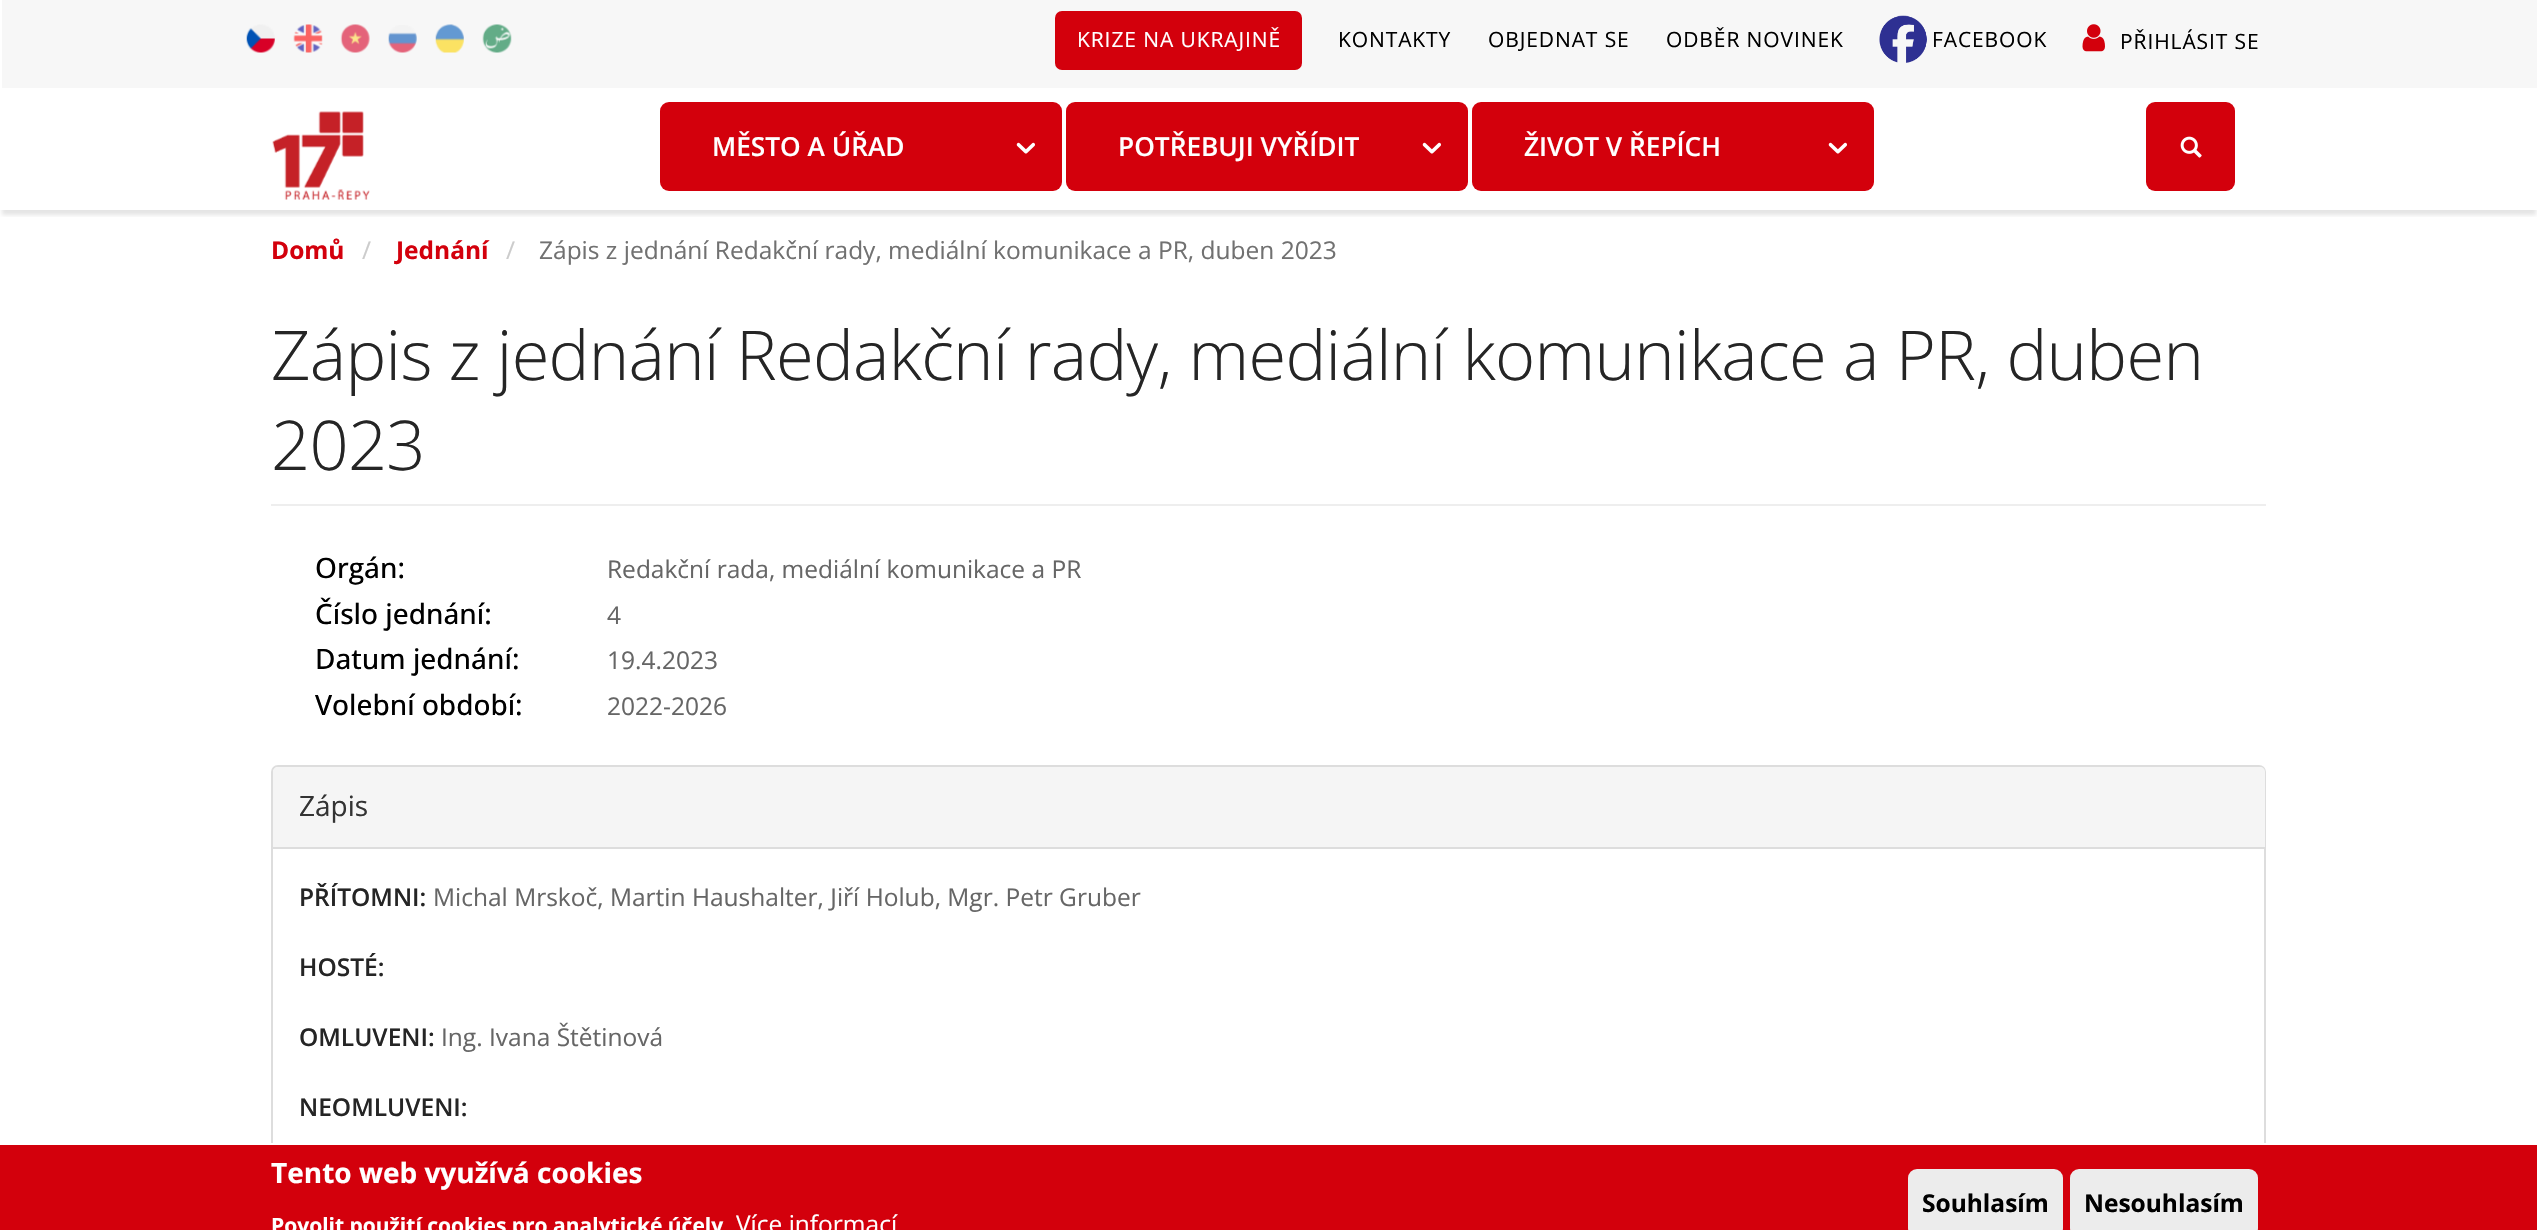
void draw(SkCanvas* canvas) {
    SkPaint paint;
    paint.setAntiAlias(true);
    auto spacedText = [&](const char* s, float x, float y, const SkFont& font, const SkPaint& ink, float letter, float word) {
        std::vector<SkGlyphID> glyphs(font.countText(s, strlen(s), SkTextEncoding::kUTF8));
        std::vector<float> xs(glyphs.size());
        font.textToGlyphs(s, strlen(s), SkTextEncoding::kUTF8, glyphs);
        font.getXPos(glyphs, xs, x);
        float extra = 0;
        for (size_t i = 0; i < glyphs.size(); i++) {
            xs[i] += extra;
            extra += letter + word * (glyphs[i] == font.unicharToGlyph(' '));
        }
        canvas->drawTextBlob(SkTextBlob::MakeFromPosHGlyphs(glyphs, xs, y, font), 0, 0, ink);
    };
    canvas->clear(0xFFFFFFFF);
    canvas->save();
    canvas->clipRect(SkRect::MakeXYWH(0, 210, 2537, 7));
    paint.setColor(0x1A000000);
    paint.setMaskFilter(SkMaskFilter::MakeBlur(kNormal_SkBlurStyle, 2));
    canvas->drawRect(SkRect::MakeXYWH(2, 9, 2534, 206), paint);
    paint.setMaskFilter(nullptr);
    canvas->restore();
    paint.setColor(0xFFF7F7F7);
    canvas->drawRect(SkRect::MakeXYWH(2, 0, 2535, 88), paint);
    canvas->drawImageRect(SkImages::DeferredFromEncodedData(SkData::MakeFromFileName("img1.png")), SkRect::MakeXYWH(246, 24, 29, 29), SkSamplingOptions());
    canvas->drawImageRect(SkImages::DeferredFromEncodedData(SkData::MakeFromFileName("img2.png")), SkRect::MakeXYWH(293, 24, 30, 29), SkSamplingOptions());
    canvas->drawImageRect(SkImages::DeferredFromEncodedData(SkData::MakeFromFileName("img3.png")), SkRect::MakeXYWH(340, 24, 30, 29), SkSamplingOptions());
    canvas->drawImageRect(SkImages::DeferredFromEncodedData(SkData::MakeFromFileName("img4.png")), SkRect::MakeXYWH(388, 25, 29, 28), SkSamplingOptions());
    canvas->drawImageRect(SkImages::DeferredFromEncodedData(SkData::MakeFromFileName("img5.png")), SkRect::MakeXYWH(435, 24, 29, 29), SkSamplingOptions());
    canvas->drawImageRect(SkImages::DeferredFromEncodedData(SkData::MakeFromFileName("img6.png")), SkRect::MakeXYWH(482, 24, 30, 29), SkSamplingOptions());
    paint.setColor(0xFFD3000C);
    canvas->drawRoundRect(SkRect::MakeXYWH(1055, 11, 247, 59), 7, 7, paint);
    SkFont font1(fontMgr->matchFamilyStyle("Open Sans", SkFontStyle::Normal()), 21);
    font1.setSubpixel(true);
    paint.setColor(0xFFFFFFFF);
    spacedText("KRIZE NA UKRAJINĚ", 1077, 47, font1, paint, 0.9f, 0);
    paint.setColor(0xFF000000);
    spacedText("KONTAKTY", 1338, 47, font1, paint, 0.9f, 0);
    spacedText("OBJEDNAT SE", 1488, 47, font1, paint, 0.9f, 0);
    spacedText("ODBĚR NOVINEK", 1666, 47, font1, paint, 0.9f, 0);
    canvas->drawImageRect(SkImages::DeferredFromEncodedData(SkData::MakeFromFileName("img7.png")), SkRect::MakeXYWH(1879, 15, 48, 48), SkSamplingOptions());
    spacedText("FACEBOOK", 1932, 47, font1, paint, 0.9f, 0);
    canvas->drawImageRect(SkImages::DeferredFromEncodedData(SkData::MakeFromFileName("img8.png")), SkRect::MakeXYWH(2082, 24, 23, 28), SkSamplingOptions());
    spacedText("PŘIHLÁSIT SE", 2120, 49, font1, paint, 0.9f, 0);
    canvas->drawImageRect(SkImages::DeferredFromEncodedData(SkData::MakeFromFileName("img9.png")), SkRect::MakeXYWH(272, 111, 98, 89), SkSamplingOptions());
    paint.setColor(0xFFD3000C);
    canvas->drawRoundRect(SkRect::MakeXYWH(2146, 102, 89, 89), 9, 9, paint);
    canvas->drawImageRect(SkImages::DeferredFromEncodedData(SkData::MakeFromFileName("img10.png")), SkRect::MakeXYWH(2180, 136, 22, 22), SkSamplingOptions());
    canvas->drawRoundRect(SkRect::MakeXYWH(660, 102, 402, 89), 9, 9, paint);
    SkFont font2(fontMgr->matchFamilyStyle("Open Sans", SkFontStyle(600, SkFontStyle::kNormal_Width, SkFontStyle::kUpright_Slant)), 26.25f);
    font2.setSubpixel(true);
    paint.setColor(0xFFFFFFFF);
    canvas->drawString("MĚSTO A ÚŘAD", 712, 156, font2, paint);
    canvas->drawImageRect(SkImages::DeferredFromEncodedData(SkData::MakeFromFileName("img11.png")), SkRect::MakeXYWH(1016, 142, 19, 12), SkSamplingOptions());
    paint.setColor(0xFFD3000C);
    canvas->drawRoundRect(SkRect::MakeXYWH(1066, 102, 402, 89), 9, 9, paint);
    paint.setColor(0xFFFFFFFF);
    canvas->drawString("POTŘEBUJI VYŘÍDIT", 1118, 156, font2, paint);
    canvas->drawImageRect(SkImages::DeferredFromEncodedData(SkData::MakeFromFileName("img11.png")), SkRect::MakeXYWH(1422, 142, 19, 12), SkSamplingOptions());
    paint.setColor(0xFFD3000C);
    canvas->drawRoundRect(SkRect::MakeXYWH(1472, 102, 402, 89), 9, 9, paint);
    paint.setColor(0xFFFFFFFF);
    canvas->drawString("ŽIVOT V ŘEPÍCH", 1524, 156, font2, paint);
    canvas->drawImageRect(SkImages::DeferredFromEncodedData(SkData::MakeFromFileName("img11.png")), SkRect::MakeXYWH(1828, 142, 19, 12), SkSamplingOptions());
    SkFont font3(fontMgr->matchFamilyStyle("Open Sans", SkFontStyle::Bold()), 24.5f);
    font3.setSubpixel(true);
    paint.setColor(0xFFD3000C);
    canvas->drawString("Domů", 271, 259, font3, paint);
    SkFont font4(fontMgr->matchFamilyStyle("Open Sans", SkFontStyle::Normal()), 24.5f);
    font4.setSubpixel(true);
    paint.setColor(0xFFCCCCCC);
    canvas->drawString("/", 362, 259, font4, paint);
    paint.setColor(0xFFD3000C);
    canvas->drawString("Jednání", 396, 259, font3, paint);
    paint.setColor(0xFFCCCCCC);
    canvas->drawString("/", 506, 259, font4, paint);
    paint.setColor(0xFF717171);
    canvas->drawString("Zápis z jednání Redakční rady, mediální komunikace a PR, duben 2023", 539, 259, font4, paint);
    paint.setColor(0xFFEEEEEE);
    canvas->drawRect(SkRect::MakeXYWH(271, 504, 1995, 2), paint);
    SkFont font5(fontMgr->matchFamilyStyle("Open Sans", SkFontStyle(300, SkFontStyle::kNormal_Width, SkFontStyle::kUpright_Slant)), 68.6f);
    font5.setSubpixel(true);
    paint.setColor(0xFF252525);
    spacedText("Zápis z jednání Redakční rady, mediální komunikace a PR, duben", 271, 380, font5, paint, -0.7f, 0);
    spacedText("2023", 271, 470, font5, paint, -0.7f, 0);
    SkFont font6(fontMgr->matchFamilyStyle("Open Sans", SkFontStyle(500, SkFontStyle::kNormal_Width, SkFontStyle::kUpright_Slant)), 28);
    font6.setSubpixel(true);
    paint.setColor(0xFF000000);
    canvas->drawString("Orgán:", 315, 578, font6, paint);
    paint.setColor(0xFF666666);
    canvas->drawString("Redakční rada, mediální komunikace a PR", 607, 578, font4, paint);
    paint.setColor(0xFF000000);
    canvas->drawString("Číslo jednání:", 315, 624, font6, paint);
    paint.setColor(0xFF666666);
    canvas->drawString("4", 607, 624, font4, paint);
    paint.setColor(0xFF000000);
    canvas->drawString("Datum jednání:", 315, 669, font6, paint);
    paint.setColor(0xFF666666);
    canvas->drawString("19.4.2023", 607, 669, font4, paint);
    paint.setColor(0xFF000000);
    canvas->drawString("Volební období:", 315, 715, font6, paint);
    paint.setColor(0xFF666666);
    canvas->drawString("2022-2026", 607, 715, font4, paint);
    paint.setStyle(SkPaint::kStroke_Style);
    paint.setStrokeWidth(2);
    paint.setColor(0xFFDDDDDD);
    canvas->drawRoundRect(SkRect::MakeXYWH(272, 766, 1993, 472), 6, 6, paint);
    paint.setStyle(SkPaint::kFill_Style);
    paint.setColor(0xFFF5F5F5);
    canvas->drawPath(SkPathBuilder().moveTo(278, 767).lineTo(2260, 767).cubicTo(2263, 767, 2265, 769, 2265, 772).lineTo(2265, 849).lineTo(273, 849).lineTo(273, 772).cubicTo(273, 769, 275, 767, 278, 767).close().detach(), paint);
    paint.setColor(0xFFDDDDDD);
    canvas->drawRect(SkRect::MakeXYWH(273, 847, 1992, 2), paint);
    SkFont font7(fontMgr->matchFamilyStyle("Open Sans", SkFontStyle::Normal()), 28);
    font7.setSubpixel(true);
    paint.setColor(0xFF333333);
    canvas->drawString("Zápis", 299, 816, font7, paint);
    SkFont font8(fontMgr->matchFamilyStyle("Open Sans", SkFontStyle(600, SkFontStyle::kNormal_Width, SkFontStyle::kUpright_Slant)), 24.5f);
    font8.setSubpixel(true);
    paint.setColor(0xFF252525);
    canvas->drawString("PŘÍTOMNI:", 299, 906, font8, paint);
    paint.setColor(0xFF666666);
    canvas->drawString("Michal Mrskoč, Martin Haushalter, Jiří Holub, Mgr. Petr Gruber", 433, 906, font4, paint);
    paint.setColor(0xFF252525);
    canvas->drawString("HOSTÉ:", 299, 976, font8, paint);
    canvas->drawString("OMLUVENI:", 299, 1046, font8, paint);
    paint.setColor(0xFF666666);
    canvas->drawString("Ing. Ivana Štětinová", 441, 1046, font4, paint);
    paint.setColor(0xFF252525);
    canvas->drawString("NEOMLUVENI:", 299, 1116, font8, paint);
    paint.setColor(0xFFD3000C);
    canvas->drawRect(SkRect::MakeXYWH(0, 1145, 2537, 85), paint);
    paint.setColor(0xFFFFFFFF);
    canvas->drawRect(SkRect::MakeXYWH(271, 1143, 1995, 2), paint);
    SkFont font9(fontMgr->matchFamilyStyle("Open Sans", SkFontStyle::Bold()), 28);
    font9.setSubpixel(true);
    canvas->drawString("Tento web využívá cookies", 271, 1183, font9, paint);
    SkFont font10(fontMgr->matchFamilyStyle("Open Sans", SkFontStyle::Bold()), 21);
    font10.setSubpixel(true);
    canvas->drawString("Povolit použití cookies pro analytické účely", 271, 1233, font10, paint);
    canvas->drawString("Více informací", 736, 1233, font4, paint);
    paint.setColor(0xFFECECEC);
    canvas->drawRoundRect(SkRect::MakeXYWH(1908, 1169, 155, 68), 9, 9, paint);
    paint.setColor(0xFF000000);
    canvas->drawString("Souhlasím", 1922, 1212, font3, paint);
    paint.setColor(0xFFECECEC);
    canvas->drawRoundRect(SkRect::MakeXYWH(2070, 1169, 188, 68), 9, 9, paint);
    paint.setColor(0xFF000000);
    canvas->drawString("Nesouhlasím", 2084, 1212, font3, paint);
}
